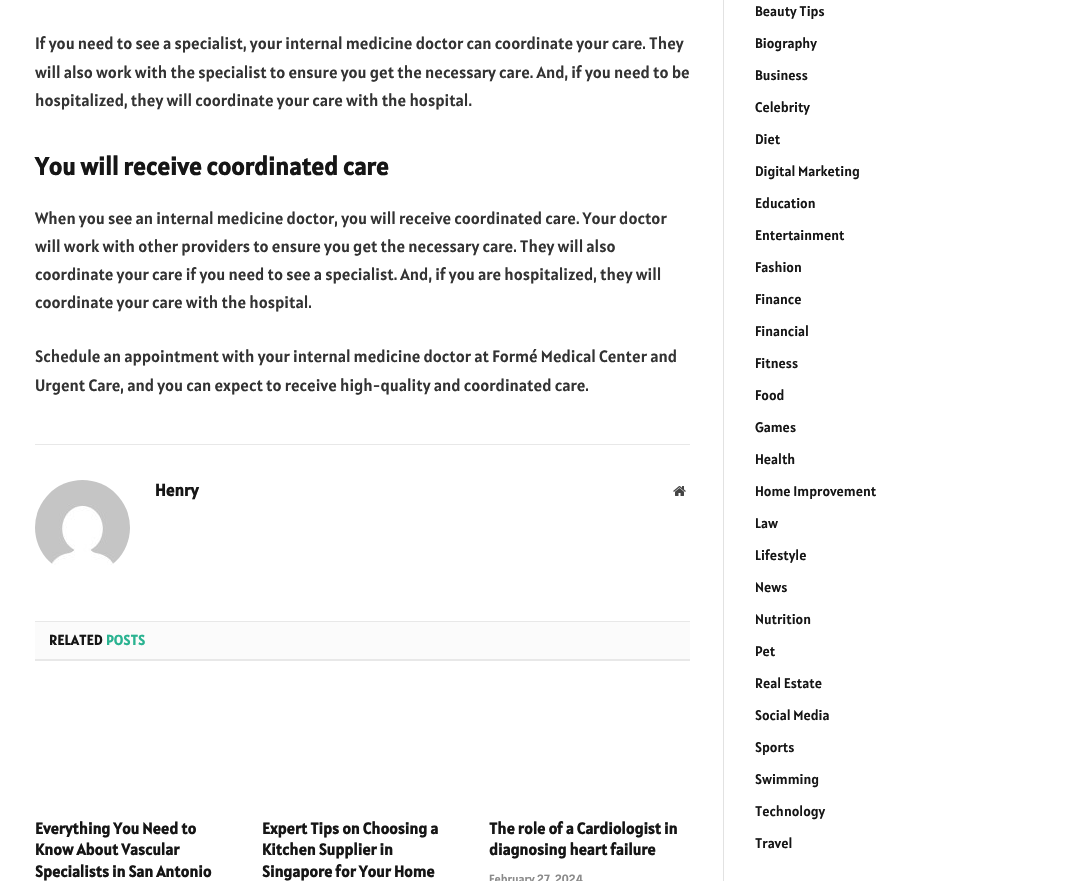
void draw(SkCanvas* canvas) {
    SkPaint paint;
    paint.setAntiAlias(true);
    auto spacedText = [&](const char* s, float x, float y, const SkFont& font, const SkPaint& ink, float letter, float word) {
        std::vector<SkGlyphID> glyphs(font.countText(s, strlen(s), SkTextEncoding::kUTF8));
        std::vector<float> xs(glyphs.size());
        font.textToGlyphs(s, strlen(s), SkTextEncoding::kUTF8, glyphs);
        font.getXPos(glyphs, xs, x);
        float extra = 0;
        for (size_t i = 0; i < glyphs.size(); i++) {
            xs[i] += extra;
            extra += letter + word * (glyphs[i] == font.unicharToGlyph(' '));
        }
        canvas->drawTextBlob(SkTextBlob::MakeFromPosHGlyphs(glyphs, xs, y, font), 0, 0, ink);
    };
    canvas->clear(0xFFFFFFFF);
    SkFont font1(fontMgr->matchFamilyStyle("Alatsi", SkFontStyle::Normal()), 16.6f);
    font1.setSubpixel(true);
    paint.setColor(0xFF333333);
    canvas->drawString("If you need to see a specialist, your internal medicine doctor can coordinate your care. They", 35, 49, font1, paint);
    canvas->drawString("will also work with the specialist to ensure you get the necessary care. And, if you need to be", 35, 78, font1, paint);
    canvas->drawString("hospitalized, they will coordinate your care with the hospital.", 35, 106, font1, paint);
    SkFont font2(fontMgr->matchFamilyStyle("Alatsi", SkFontStyle::Bold()), 24.9f);
    font2.setSubpixel(true);
    paint.setColor(0xFF161616);
    canvas->drawString("You will receive coordinated care", 35, 175, font2, paint);
    paint.setColor(0xFF333333);
    canvas->drawString("When you see an internal medicine doctor, you will receive coordinated care. Your doctor", 35, 224, font1, paint);
    canvas->drawString("will work with other providers to ensure you get the necessary care. They will also", 35, 252, font1, paint);
    canvas->drawString("coordinate your care if you need to see a specialist. And, if you are hospitalized, they will", 35, 280, font1, paint);
    canvas->drawString("coordinate your care with the hospital.", 35, 308, font1, paint);
    canvas->drawString("Schedule an appointment with your internal medicine doctor at Formé Medical Center and", 35, 362, font1, paint);
    canvas->drawString("Urgent Care, and you can expect to receive high-quality and coordinated care.", 35, 391, font1, paint);
    paint.setColor(0xFFE8E8E8);
    canvas->drawRect(SkRect::MakeXYWH(35, 444, 655, 1), paint);
    canvas->drawImageRect(SkImages::DeferredFromEncodedData(SkData::MakeFromFileName("img1.png")), SkRect::MakeXYWH(35, 480, 95, 85), SkSamplingOptions());
    SkFont font3(fontMgr->matchFamilyStyle("Alatsi", SkFontStyle::Bold()), 17);
    font3.setSubpixel(true);
    paint.setColor(0xFF161616);
    canvas->drawString("Henry", 155, 496, font3, paint);
    canvas->drawImageRect(SkImages::DeferredFromEncodedData(SkData::MakeFromFileName("img2.png")), SkRect::MakeXYWH(673, 486, 13, 10), SkSamplingOptions());
    paint.setColor(0xFFFBFBFB);
    canvas->drawRect(SkRect::MakeXYWH(35, 622, 655, 37), paint);
    paint.setColor(0xFFE8E8E8);
    canvas->drawRect(SkRect::MakeXYWH(35, 621, 655, 1), paint);
    canvas->drawRect(SkRect::MakeXYWH(35, 659, 655, 2), paint);
    SkFont font4(fontMgr->matchFamilyStyle("Alatsi", SkFontStyle::Bold()), 14);
    font4.setSubpixel(true);
    paint.setColor(0xFF161616);
    spacedText("RELATED", 49, 645, font4, paint, 0.25f, 0);
    paint.setColor(0xFF2AB391);
    spacedText("POSTS", 106, 645, font4, paint, 0.25f, 0);
    SkFont font5(fontMgr->matchFamilyStyle("Alatsi", SkFontStyle::Bold()), 16);
    font5.setSubpixel(true);
    paint.setColor(0xFF161616);
    canvas->drawString("Everything You Need to", 35, 834, font5, paint);
    canvas->drawString("Know About Vascular", 35, 855, font5, paint);
    canvas->drawString("Specialists in San Antonio", 35, 877, font5, paint);
    canvas->drawString("Expert Tips on Choosing a", 262, 834, font5, paint);
    canvas->drawString("Kitchen Supplier in", 262, 855, font5, paint);
    canvas->drawString("Singapore for Your Home", 262, 877, font5, paint);
    canvas->drawString("The role of a Cardiologist in", 489, 834, font5, paint);
    canvas->drawString("diagnosing heart failure", 489, 855, font5, paint);
    SkFont font6(fontMgr->matchFamilyStyle("Alatsi", SkFontStyle::Normal()), 12);
    font6.setSubpixel(true);
    paint.setColor(0xFF8A8A8A);
    canvas->drawString("February 27, 2024", 489, 883, font6, paint);
    paint.setColor(0xFFE2E2E2);
    canvas->drawRect(SkRect::MakeXYWH(723, 0, 1, 881), paint);
    SkFont font7(fontMgr->matchFamilyStyle("Alatsi", SkFontStyle::Normal()), 14);
    font7.setSubpixel(true);
    paint.setColor(0xFF161616);
    canvas->drawString("Beauty Tips", 755, 16, font7, paint);
    canvas->drawString("Biography", 755, 48, font7, paint);
    canvas->drawString("Business", 755, 80, font7, paint);
    canvas->drawString("Celebrity", 755, 112, font7, paint);
    canvas->drawString("Diet", 755, 144, font7, paint);
    canvas->drawString("Digital Marketing", 755, 176, font7, paint);
    canvas->drawString("Education", 755, 208, font7, paint);
    canvas->drawString("Entertainment", 755, 240, font7, paint);
    canvas->drawString("Fashion", 755, 272, font7, paint);
    canvas->drawString("Finance", 755, 304, font7, paint);
    canvas->drawString("Financial", 755, 336, font7, paint);
    canvas->drawString("Fitness", 755, 368, font7, paint);
    canvas->drawString("Food", 755, 400, font7, paint);
    canvas->drawString("Games", 755, 432, font7, paint);
    canvas->drawString("Health", 755, 464, font7, paint);
    canvas->drawString("Home Improvement", 755, 496, font7, paint);
    canvas->drawString("Law", 755, 528, font7, paint);
    canvas->drawString("Lifestyle", 755, 560, font7, paint);
    canvas->drawString("News", 755, 592, font7, paint);
    canvas->drawString("Nutrition", 755, 624, font7, paint);
    canvas->drawString("Pet", 755, 656, font7, paint);
    canvas->drawString("Real Estate", 755, 688, font7, paint);
    canvas->drawString("Social Media", 755, 720, font7, paint);
    canvas->drawString("Sports", 755, 752, font7, paint);
    canvas->drawString("Swimming", 755, 784, font7, paint);
    canvas->drawString("Technology", 755, 816, font7, paint);
    canvas->drawString("Travel", 755, 848, font7, paint);
}
